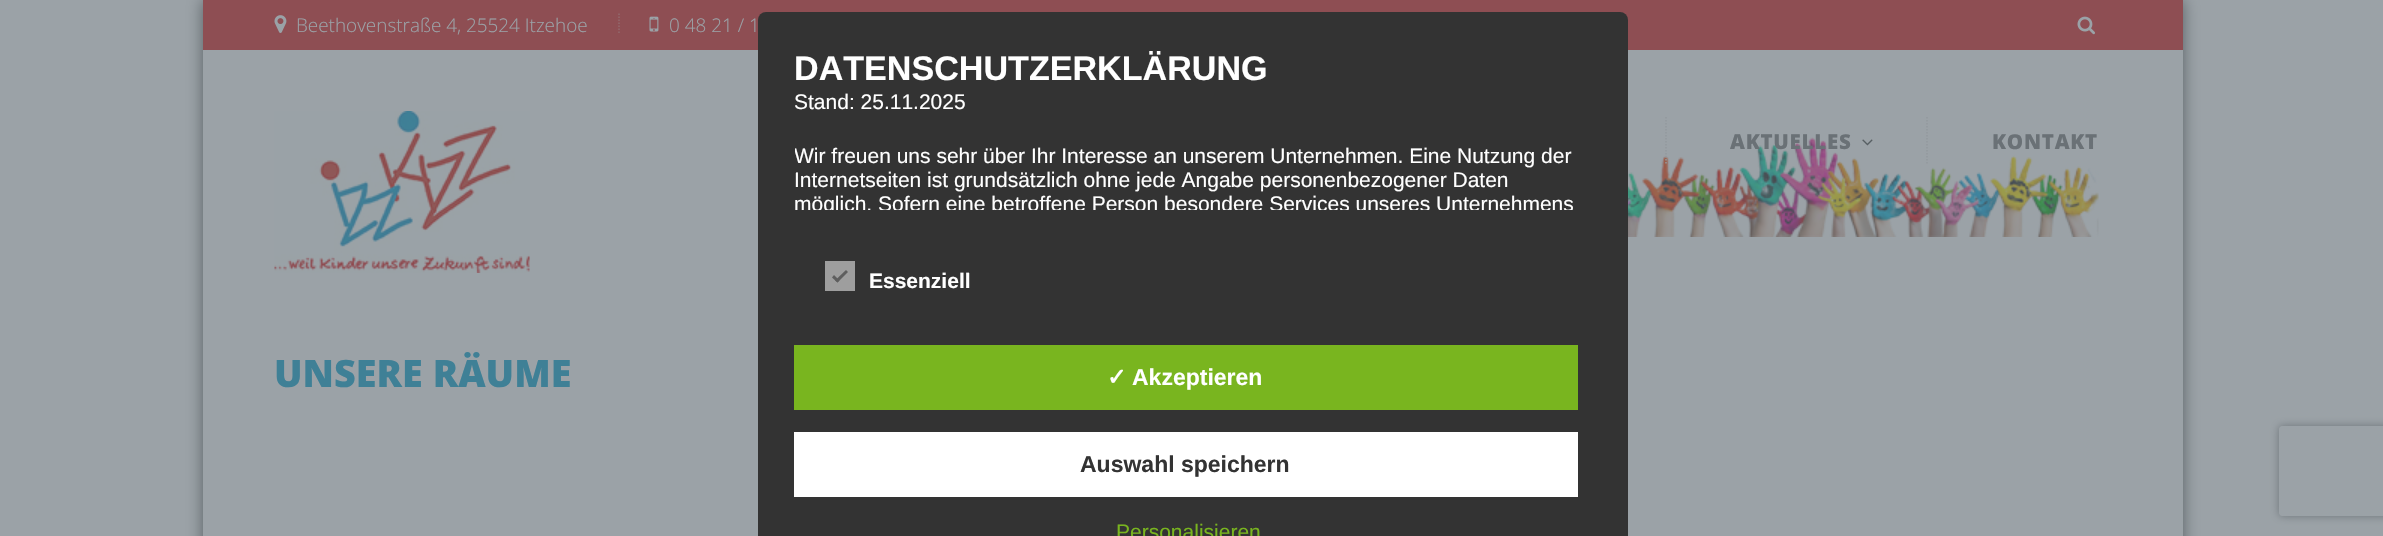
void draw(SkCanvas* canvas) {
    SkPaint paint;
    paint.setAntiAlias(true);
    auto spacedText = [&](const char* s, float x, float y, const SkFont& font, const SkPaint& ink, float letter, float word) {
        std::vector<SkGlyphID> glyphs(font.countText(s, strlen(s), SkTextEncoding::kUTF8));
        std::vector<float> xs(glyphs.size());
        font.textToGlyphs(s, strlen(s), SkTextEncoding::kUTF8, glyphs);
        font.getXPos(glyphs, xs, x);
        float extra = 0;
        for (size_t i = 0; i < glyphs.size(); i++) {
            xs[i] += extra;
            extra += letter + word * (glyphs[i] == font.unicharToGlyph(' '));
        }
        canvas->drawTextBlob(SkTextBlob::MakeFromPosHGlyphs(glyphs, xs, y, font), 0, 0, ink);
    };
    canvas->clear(0xFF9BA2A7);
    paint.setColor(0xFF575F63);
    paint.setMaskFilter(SkMaskFilter::MakeBlur(kNormal_SkBlurStyle, 7.5f));
    canvas->drawRect(SkRect::MakeXYWH(203, 0, 1980, 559), paint);
    paint.setMaskFilter(nullptr);
    paint.setColor(0xFF9BA2A7);
    canvas->drawRect(SkRect::MakeXYWH(203, 50, 1980, 486), paint);
    paint.setColor(0xFF8E4E53);
    canvas->drawRect(SkRect::MakeXYWH(203, 0, 1980, 50), paint);
    canvas->drawImageRect(SkImages::DeferredFromEncodedData(SkData::MakeFromFileName("img1.png")), SkRect::MakeXYWH(274, 15, 13, 18), SkSamplingOptions());
    SkFont font1(fontMgr->matchFamilyStyle("Open Sans", SkFontStyle(300, SkFontStyle::kNormal_Width, SkFontStyle::kUpright_Slant)), 18.9f);
    font1.setSubpixel(true);
    paint.setColor(0xFF9BA2A7);
    canvas->drawString("Beethovenstraße 4, 25524 Itzehoe", 296, 32, font1, paint);
    paint.setStyle(SkPaint::kStroke_Style);
    paint.setStrokeWidth(1.5f);
    paint.setColor(0xFF92686C);
    paint.setPathEffect(SkDashPathEffect::Make({{1.5f, 1.5f}}, 0));
    canvas->drawPath(SkPathBuilder().moveTo(619, 13.5f).lineTo(619, 34.5f).detach(), paint);
    paint.setPathEffect(nullptr);
    canvas->drawImageRect(SkImages::DeferredFromEncodedData(SkData::MakeFromFileName("img2.png")), SkRect::MakeXYWH(649, 16, 10, 16), SkSamplingOptions());
    paint.setStyle(SkPaint::kFill_Style);
    paint.setColor(0xFF9BA2A7);
    canvas->drawString("0 48 21 / 1", 669, 32, font1, paint);
    canvas->drawImageRect(SkImages::DeferredFromEncodedData(SkData::MakeFromFileName("img3.png")), SkRect::MakeXYWH(2077, 16, 18, 19), SkSamplingOptions());
    canvas->drawImageRect(SkImages::DeferredFromEncodedData(SkData::MakeFromFileName("img4.png")), SkRect::MakeXYWH(274, 111, 256, 162), SkSamplingOptions());
    canvas->drawImageRect(SkImages::DeferredFromEncodedData(SkData::MakeFromFileName("img5.png")), SkRect::MakeXYWH(1628, 137, 471, 100), SkSamplingOptions());
    paint.setStyle(SkPaint::kStroke_Style);
    paint.setColor(0xFF92999E);
    paint.setPathEffect(SkDashPathEffect::Make({{1.5f, 1.5f}}, 0));
    canvas->drawPath(SkPathBuilder().moveTo(1666, 117).lineTo(1666, 165).detach(), paint);
    paint.setPathEffect(nullptr);
    paint.setPathEffect(SkDashPathEffect::Make({{1.5f, 1.5f}}, 0));
    canvas->drawPath(SkPathBuilder().moveTo(1927, 117).lineTo(1927, 165).detach(), paint);
    paint.setPathEffect(nullptr);
    SkFont font2(fontMgr->matchFamilyStyle("Open Sans", SkFontStyle(800, SkFontStyle::kNormal_Width, SkFontStyle::kUpright_Slant)), 20.5f);
    font2.setSubpixel(true);
    paint.setStyle(SkPaint::kFill_Style);
    paint.setColor(0xFF6A7176);
    spacedText("AKTUELLES", 1730, 149, font2, paint, 0.75f, 0);
    canvas->drawImageRect(SkImages::DeferredFromEncodedData(SkData::MakeFromFileName("img6.png")), SkRect::MakeXYWH(1862, 139, 11, 7), SkSamplingOptions());
    spacedText("KONTAKT", 1992, 149, font2, paint, 0.75f, 0);
    SkFont font3(fontMgr->matchFamilyStyle("Open Sans", SkFontStyle(800, SkFontStyle::kNormal_Width, SkFontStyle::kUpright_Slant)), 37.75f);
    font3.setSubpixel(true);
    paint.setColor(0xFF3F8096);
    canvas->drawString("UNSERE RÄUME", 274, 387, font3, paint);
    paint.setColor(0xFF333333);
    canvas->drawRoundRect(SkRect::MakeXYWH(758, 12, 870, 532), 8, 8, paint);
    SkFont font4(fontMgr->matchFamilyStyle("Liberation Sans", SkFontStyle::Bold()), 34.1f);
    font4.setSubpixel(true);
    paint.setColor(0xFFFFFFFF);
    canvas->drawString("DATENSCHUTZERKLÄRUNG", 794, 80, font4, paint);
    SkFont font5(fontMgr->matchFamilyStyle("Liberation Sans", SkFontStyle::Normal()), 21);
    font5.setSubpixel(true);
    canvas->drawString("Stand: 25.11.2025", 794, 109, font5, paint);
    canvas->save();
    canvas->clipRect(SkRect::MakeXYWH(795, 50, 810, 160));
    canvas->drawString("Wir freuen uns sehr über Ihr Interesse an unserem Unternehmen. Eine Nutzung der", 794, 163, font5, paint);
    canvas->restore();
    canvas->drawString("Internetseiten ist grundsätzlich ohne jede Angabe personenbezogener Daten", 794, 187, font5, paint);
    canvas->save();
    canvas->clipRect(SkRect::MakeXYWH(795, 50, 810, 160));
    canvas->drawString("möglich. Sofern eine betroffene Person besondere Services unseres Unternehmens", 794, 211, font5, paint);
    canvas->restore();
    paint.setColor(0xFF9E9E9E);
    canvas->drawRect(SkRect::MakeXYWH(825, 261, 30, 30), paint);
    paint.setColor(0xFF5E5E5E);
    canvas->drawPath(SkPathBuilder().moveTo(846, 270).lineTo(848, 272).lineTo(837.5f, 282.5f).lineTo(835, 280.5f).close().detach(), paint);
    canvas->drawPath(SkPathBuilder().moveTo(834, 275).lineTo(839.5f, 280.5f).lineTo(837.5f, 282.5f).lineTo(832, 277.5f).close().detach(), paint);
    SkFont font6(fontMgr->matchFamilyStyle("Liberation Sans", SkFontStyle::Bold()), 21);
    font6.setSubpixel(true);
    paint.setColor(0xFFFFFFFF);
    canvas->drawString("Essenziell", 869, 288, font6, paint);
    paint.setColor(0xFF79B51F);
    canvas->drawRect(SkRect::MakeXYWH(794, 345, 784, 65), paint);
    SkFont font7(fontMgr->matchFamilyStyle("DejaVu Sans", SkFontStyle::Bold()), 23);
    font7.setSubpixel(true);
    paint.setColor(0xFFFFFFFF);
    canvas->drawString("✓", 1107, 385, font7, paint);
    SkFont font8(fontMgr->matchFamilyStyle("Liberation Sans", SkFontStyle::Bold()), 23);
    font8.setSubpixel(true);
    canvas->drawString("Akzeptieren", 1132, 385, font8, paint);
    canvas->drawRect(SkRect::MakeXYWH(794, 432, 784, 65), paint);
    paint.setColor(0xFF333333);
    canvas->drawString("Auswahl speichern", 1080, 472, font8, paint);
    paint.setColor(0xFF79B51F);
    canvas->drawString("Personalisieren", 1116, 539, font5, paint);
    canvas->save();
    canvas->clipPath(SkPathBuilder(SkPathFillType::kEvenOdd).moveTo(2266, 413).lineTo(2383, 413).lineTo(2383, 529).lineTo(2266, 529).close().moveTo(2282, 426).lineTo(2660, 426).cubicTo(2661.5f, 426, 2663, 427.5f, 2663, 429).lineTo(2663, 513).cubicTo(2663, 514.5f, 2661.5f, 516, 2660, 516).lineTo(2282, 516).cubicTo(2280.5f, 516, 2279, 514.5f, 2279, 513).lineTo(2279, 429).cubicTo(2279, 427.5f, 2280.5f, 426, 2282, 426).close().detach(), true);
    paint.setColor(0xFF6D7479);
    paint.setMaskFilter(SkMaskFilter::MakeBlur(kNormal_SkBlurStyle, 4));
    canvas->drawRoundRect(SkRect::MakeXYWH(2279, 426, 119, 90), 3, 3, paint);
    paint.setMaskFilter(nullptr);
    canvas->restore();
}
